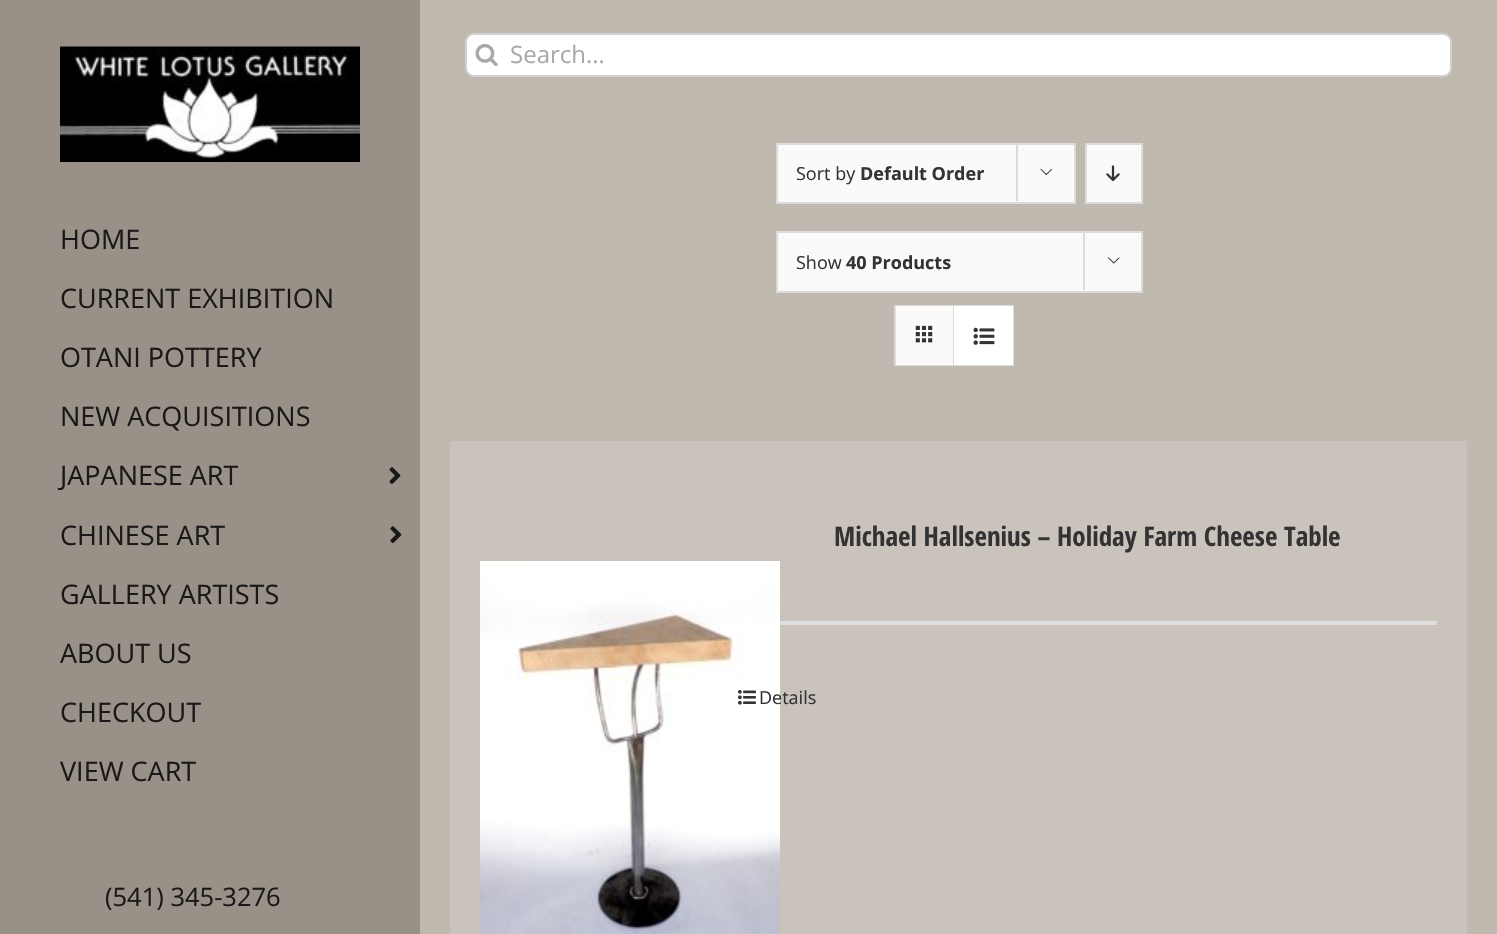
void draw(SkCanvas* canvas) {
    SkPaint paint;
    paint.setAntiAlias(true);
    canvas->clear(0xFFBFB9B0);
    paint.setColor(0xFFFFFFFF);
    canvas->drawRoundRect(SkRect::MakeXYWH(466, 34, 985, 42), 8, 8, paint);
    paint.setStyle(SkPaint::kStroke_Style);
    paint.setStrokeWidth(2);
    paint.setColor(0xFFD2D2D2);
    canvas->drawRoundRect(SkRect::MakeXYWH(466, 34, 985, 42), 8, 8, paint);
    canvas->drawImageRect(SkImages::DeferredFromEncodedData(SkData::MakeFromFileName("img1.png")), SkRect::MakeXYWH(475, 44, 23, 23), SkSamplingOptions());
    SkFont font1(fontMgr->matchFamilyStyle("Open Sans", SkFontStyle::Normal()), 24);
    font1.setSubpixel(true);
    paint.setStyle(SkPaint::kFill_Style);
    paint.setColor(0xFFAAA9A9);
    canvas->drawString("Search...", 510, 63, font1, paint);
    paint.setColor(0xFF999187);
    canvas->drawRect(SkRect::MakeXYWH(0, 0, 420, 934), paint);
    canvas->drawImageRect(SkImages::DeferredFromEncodedData(SkData::MakeFromFileName("img2.png")), SkRect::MakeXYWH(60, 46, 300, 116), SkSamplingOptions());
    SkFont font2(fontMgr->matchFamilyStyle("Open Sans", SkFontStyle::Normal()), 27);
    font2.setSubpixel(true);
    paint.setColor(0xFF191919);
    canvas->drawString("HOME", 60, 249, font2, paint);
    canvas->drawString("CURRENT EXHIBITION", 60, 308, font2, paint);
    canvas->drawString("OTANI POTTERY", 60, 367, font2, paint);
    canvas->drawString("NEW ACQUISITIONS", 60, 426, font2, paint);
    canvas->drawString("JAPANESE ART", 60, 485, font2, paint);
    canvas->drawImageRect(SkImages::DeferredFromEncodedData(SkData::MakeFromFileName("img3.png")), SkRect::MakeXYWH(389, 467, 12, 17), SkSamplingOptions());
    canvas->drawString("CHINESE ART", 60, 545, font2, paint);
    canvas->drawImageRect(SkImages::DeferredFromEncodedData(SkData::MakeFromFileName("img4.png")), SkRect::MakeXYWH(390, 526, 12, 18), SkSamplingOptions());
    canvas->drawString("GALLERY ARTISTS", 60, 604, font2, paint);
    canvas->drawString("ABOUT US", 60, 663, font2, paint);
    canvas->drawString("CHECKOUT", 60, 722, font2, paint);
    canvas->drawString("VIEW CART", 60, 781, font2, paint);
    SkFont font3(fontMgr->matchFamilyStyle("Open Sans", SkFontStyle::Normal()), 25.5f);
    font3.setSubpixel(true);
    canvas->drawString("(541) 345-3276", 105, 906, font3, paint);
    paint.setColor(0xFFFBFAF9);
    canvas->drawRect(SkRect::MakeXYWH(777, 144, 298, 59), paint);
    paint.setStyle(SkPaint::kStroke_Style);
    paint.setColor(0xFFDBDBDB);
    canvas->drawRect(SkRect::MakeXYWH(777, 144, 298, 59), paint);
    canvas->save();
    canvas->clipRect(SkRect::MakeXYWH(797, 144, 199, 59));
    SkFont font4(fontMgr->matchFamilyStyle("Open Sans", SkFontStyle::Normal()), 18);
    font4.setSubpixel(true);
    paint.setStyle(SkPaint::kFill_Style);
    paint.setColor(0xFF333333);
    canvas->drawString("Sort by", 796, 180, font4, paint);
    canvas->restore();
    SkFont font5(fontMgr->matchFamilyStyle("Open Sans", SkFontStyle::Bold()), 18);
    font5.setSubpixel(true);
    canvas->drawString("Default Order", 860, 180, font5, paint);
    paint.setColor(0xFFDBDBDB);
    canvas->drawRect(SkRect::MakeXYWH(1016, 143, 2, 58), paint);
    canvas->drawImageRect(SkImages::DeferredFromEncodedData(SkData::MakeFromFileName("img5.png")), SkRect::MakeXYWH(1040, 168, 12, 7), SkSamplingOptions());
    paint.setColor(0xFFFBFAF9);
    canvas->drawRect(SkRect::MakeXYWH(1086, 144, 56, 59), paint);
    paint.setStyle(SkPaint::kStroke_Style);
    paint.setColor(0xFFDBDBDB);
    canvas->drawRect(SkRect::MakeXYWH(1086, 144, 56, 59), paint);
    canvas->drawImageRect(SkImages::DeferredFromEncodedData(SkData::MakeFromFileName("img6.png")), SkRect::MakeXYWH(1106, 165, 14, 17), SkSamplingOptions());
    paint.setStyle(SkPaint::kFill_Style);
    paint.setColor(0xFFFBFAF9);
    canvas->drawRect(SkRect::MakeXYWH(777, 232, 365, 60), paint);
    paint.setStyle(SkPaint::kStroke_Style);
    paint.setColor(0xFFDBDBDB);
    canvas->drawRect(SkRect::MakeXYWH(777, 232, 365, 60), paint);
    paint.setStyle(SkPaint::kFill_Style);
    paint.setColor(0xFF333333);
    canvas->drawString("Show", 796, 269, font4, paint);
    canvas->drawString("40 Products", 846, 269, font5, paint);
    paint.setColor(0xFFDBDBDB);
    canvas->drawRect(SkRect::MakeXYWH(1083, 231, 2, 59), paint);
    canvas->drawImageRect(SkImages::DeferredFromEncodedData(SkData::MakeFromFileName("img7.png")), SkRect::MakeXYWH(1108, 257, 12, 7), SkSamplingOptions());
    paint.setStyle(SkPaint::kStroke_Style);
    canvas->drawRect(SkRect::MakeXYWH(895, 306, 118, 59), paint);
    paint.setStyle(SkPaint::kFill_Style);
    paint.setColor(0xFFFBFAF9);
    canvas->drawRect(SkRect::MakeXYWH(896, 306, 57, 59), paint);
    paint.setColor(0xFFDBDBDB);
    canvas->drawRect(SkRect::MakeXYWH(953, 306, 1, 59), paint);
    canvas->drawImageRect(SkImages::DeferredFromEncodedData(SkData::MakeFromFileName("img8.png")), SkRect::MakeXYWH(915, 325, 18, 18), SkSamplingOptions());
    paint.setColor(0xFFFFFFFF);
    canvas->drawRect(SkRect::MakeXYWH(954, 306, 59, 59), paint);
    canvas->drawImageRect(SkImages::DeferredFromEncodedData(SkData::MakeFromFileName("img9.png")), SkRect::MakeXYWH(973, 327, 22, 18), SkSamplingOptions());
    paint.setColor(0xFFC9C3BC);
    canvas->drawRect(SkRect::MakeXYWH(450, 441, 1017, 493), paint);
    canvas->drawImageRect(SkImages::DeferredFromEncodedData(SkData::MakeFromFileName("img10.png")), SkRect::MakeXYWH(480, 561, 300, 373), SkSamplingOptions());
    SkFont font6(fontMgr->matchFamilyStyle("Open Sans Condensed", SkFontStyle::Bold()), 27);
    font6.setSubpixel(true);
    paint.setColor(0xFF333333);
    canvas->drawString("Michael Hallsenius – Holiday Farm Cheese Table", 834, 546, font6, paint);
    paint.setColor(0xFFE0DEDE);
    canvas->drawRect(SkRect::MakeXYWH(780, 621, 657, 4), paint);
    canvas->drawImageRect(SkImages::DeferredFromEncodedData(SkData::MakeFromFileName("img11.png")), SkRect::MakeXYWH(738, 690, 18, 15), SkSamplingOptions());
    paint.setColor(0xFF333333);
    canvas->drawString("Details", 759, 704, font4, paint);
}
